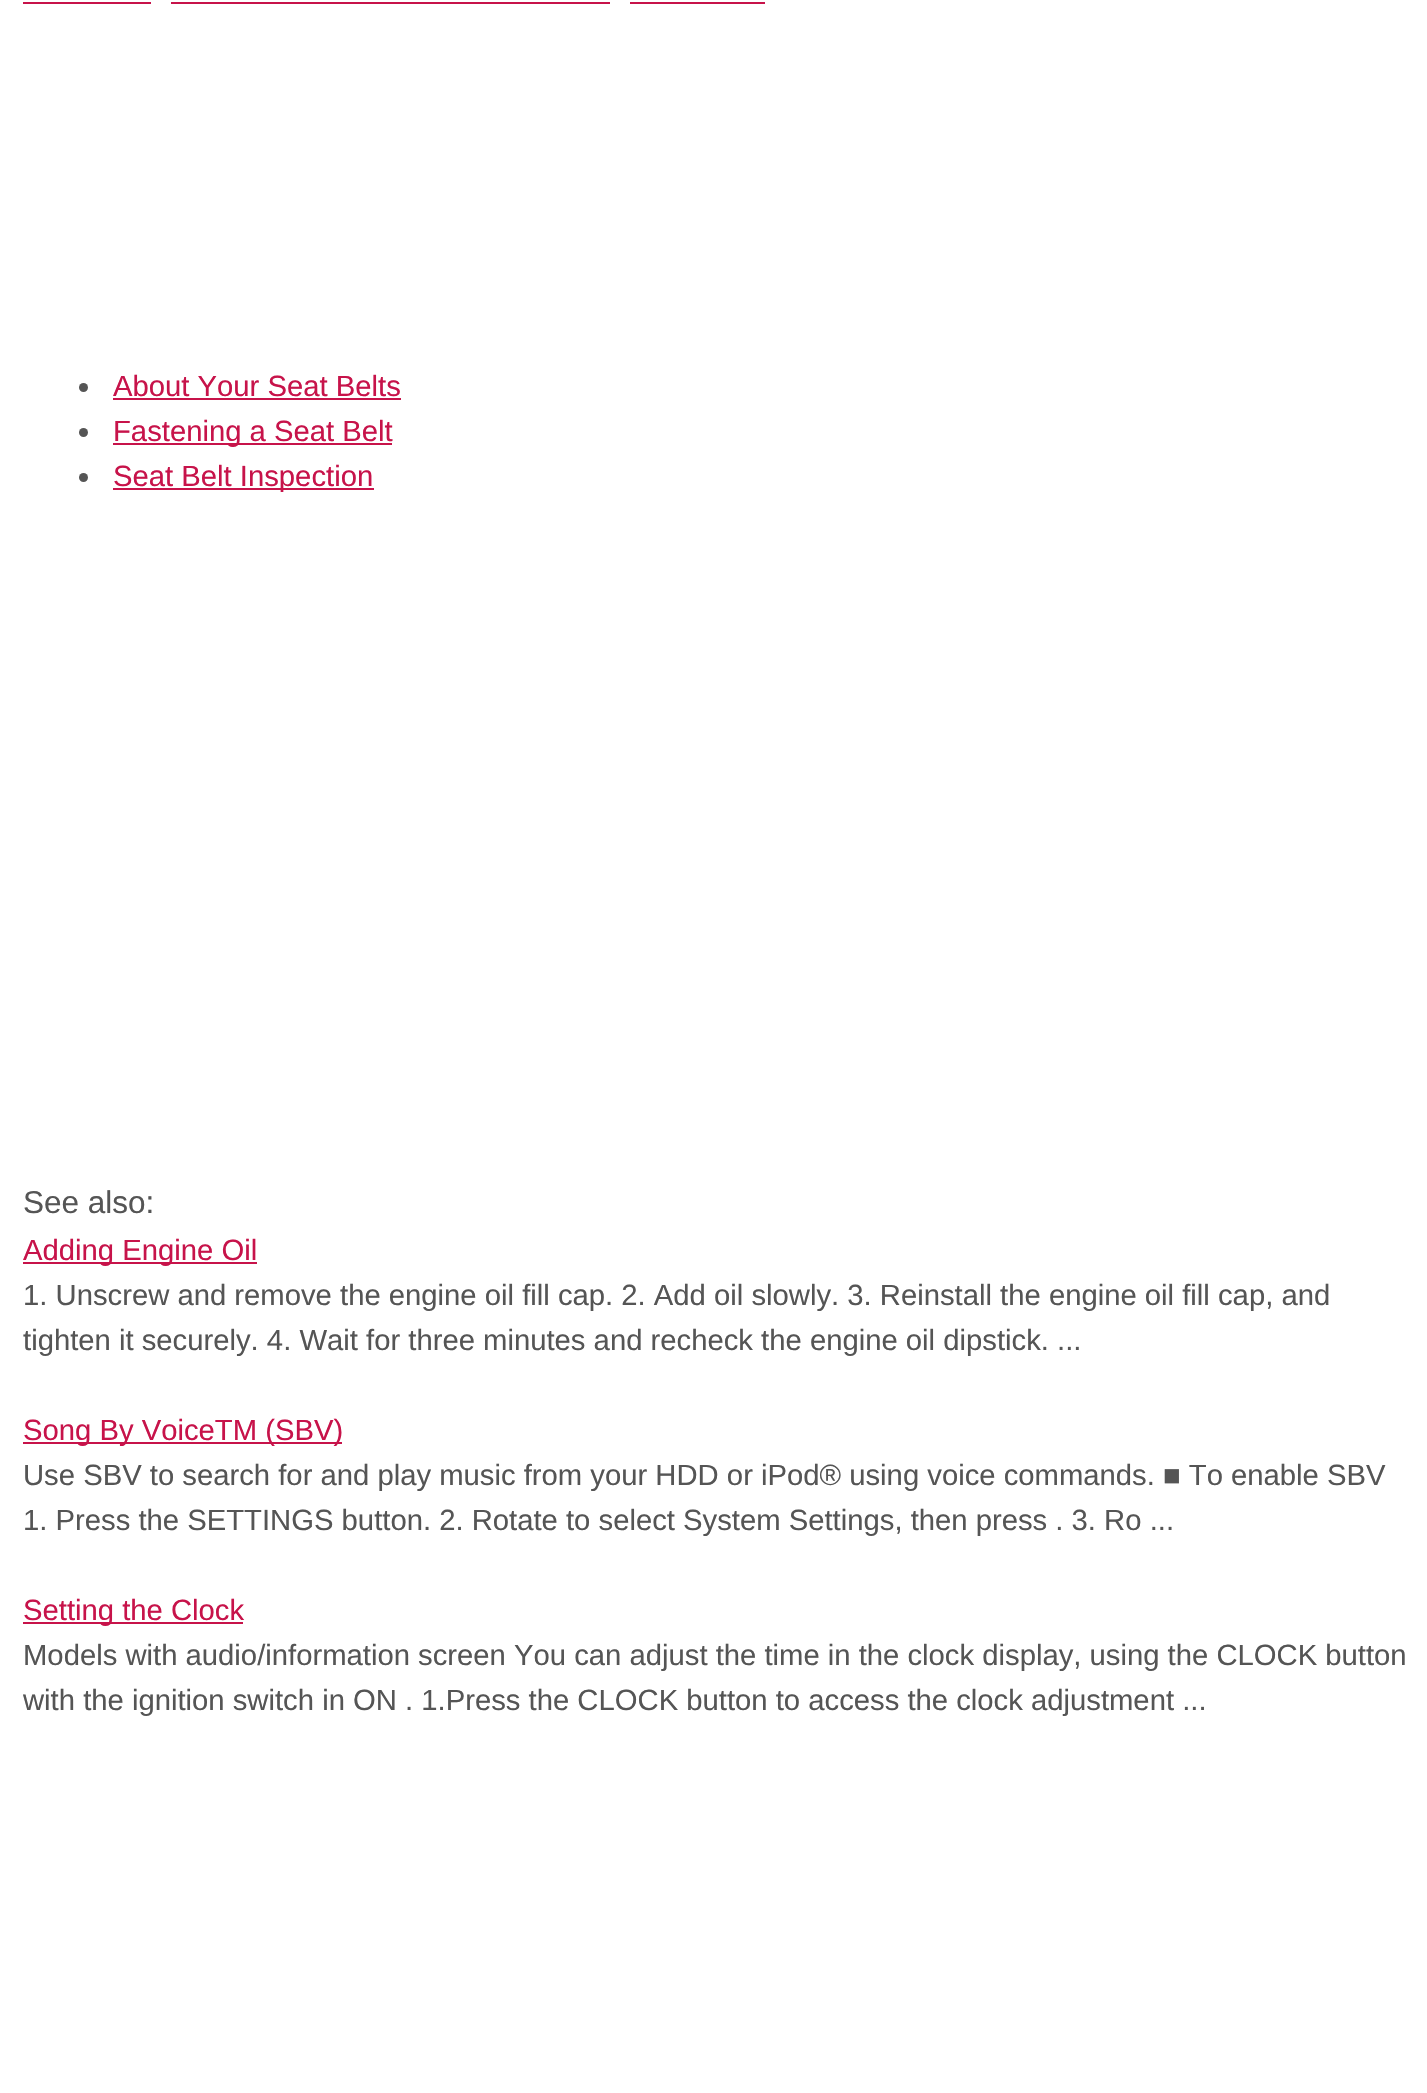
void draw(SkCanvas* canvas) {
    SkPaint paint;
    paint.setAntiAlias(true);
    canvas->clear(0xFFFFFFFF);
    paint.setColor(0xFFC7134A);
    canvas->drawRect(SkRect::MakeXYWH(23, 2, 128, 2), paint);
    canvas->drawRect(SkRect::MakeXYWH(171, 2, 439, 2), paint);
    canvas->drawRect(SkRect::MakeXYWH(630, 2, 135, 2), paint);
    paint.setColor(0xFF555555);
    canvas->drawCircle(83.5f, 387.5f, 4.5f, paint);
    SkFont font1(fontMgr->matchFamilyStyle("Liberation Sans", SkFontStyle::Normal()), 29.25f);
    font1.setSubpixel(true);
    paint.setColor(0xFFC7134A);
    canvas->drawString("About Your Seat Belts", 113, 396, font1, paint);
    canvas->drawRect(SkRect::MakeXYWH(113, 398, 288, 2), paint);
    paint.setColor(0xFF555555);
    canvas->drawCircle(83.5f, 432.5f, 4.5f, paint);
    paint.setColor(0xFFC7134A);
    canvas->drawRect(SkRect::MakeXYWH(113, 443, 279, 2), paint);
    canvas->drawString("Fastening a Seat Belt", 113, 441, font1, paint);
    paint.setColor(0xFF555555);
    canvas->drawCircle(83.5f, 477.5f, 4.5f, paint);
    paint.setColor(0xFFC7134A);
    canvas->drawRect(SkRect::MakeXYWH(113, 488, 261, 2), paint);
    canvas->drawString("Seat Belt Inspection", 113, 486, font1, paint);
    SkFont font2(fontMgr->matchFamilyStyle("Liberation Sans", SkFontStyle::Normal()), 31.5f);
    font2.setSubpixel(true);
    paint.setColor(0xFF555555);
    canvas->drawString("See also:", 23, 1213, font2, paint);
    paint.setColor(0xFFC7134A);
    canvas->drawRect(SkRect::MakeXYWH(23, 1262, 234, 2), paint);
    canvas->drawString("Adding Engine Oil", 23, 1260, font1, paint);
    paint.setColor(0xFF555555);
    canvas->drawString("1. Unscrew and remove the engine oil fill cap. 2. Add oil slowly. 3. Reinstall the engine oil fill cap, and", 23, 1305, font1, paint);
    canvas->drawString("tighten it securely. 4. Wait for three minutes and recheck the engine oil dipstick. ...", 23, 1350, font1, paint);
    paint.setColor(0xFFC7134A);
    canvas->drawRect(SkRect::MakeXYWH(23, 1442, 319, 2), paint);
    canvas->drawString("Song By VoiceTM (SBV)", 23, 1440, font1, paint);
    paint.setColor(0xFF555555);
    canvas->drawString("Use SBV to search for and play music from your HDD or iPod® using voice commands. ■ To enable SBV", 23, 1485, font1, paint);
    canvas->drawString("1. Press the SETTINGS button. 2. Rotate to select System Settings, then press . 3. Ro ...", 23, 1530, font1, paint);
    paint.setColor(0xFFC7134A);
    canvas->drawRect(SkRect::MakeXYWH(23, 1622, 220, 2), paint);
    canvas->drawString("Setting the Clock", 23, 1620, font1, paint);
    paint.setColor(0xFF555555);
    canvas->drawString("Models with audio/information screen You can adjust the time in the clock display, using the CLOCK button", 23, 1665, font1, paint);
    canvas->drawString("with the ignition switch in ON . 1.Press the CLOCK button to access the clock adjustment ...", 23, 1710, font1, paint);
}
